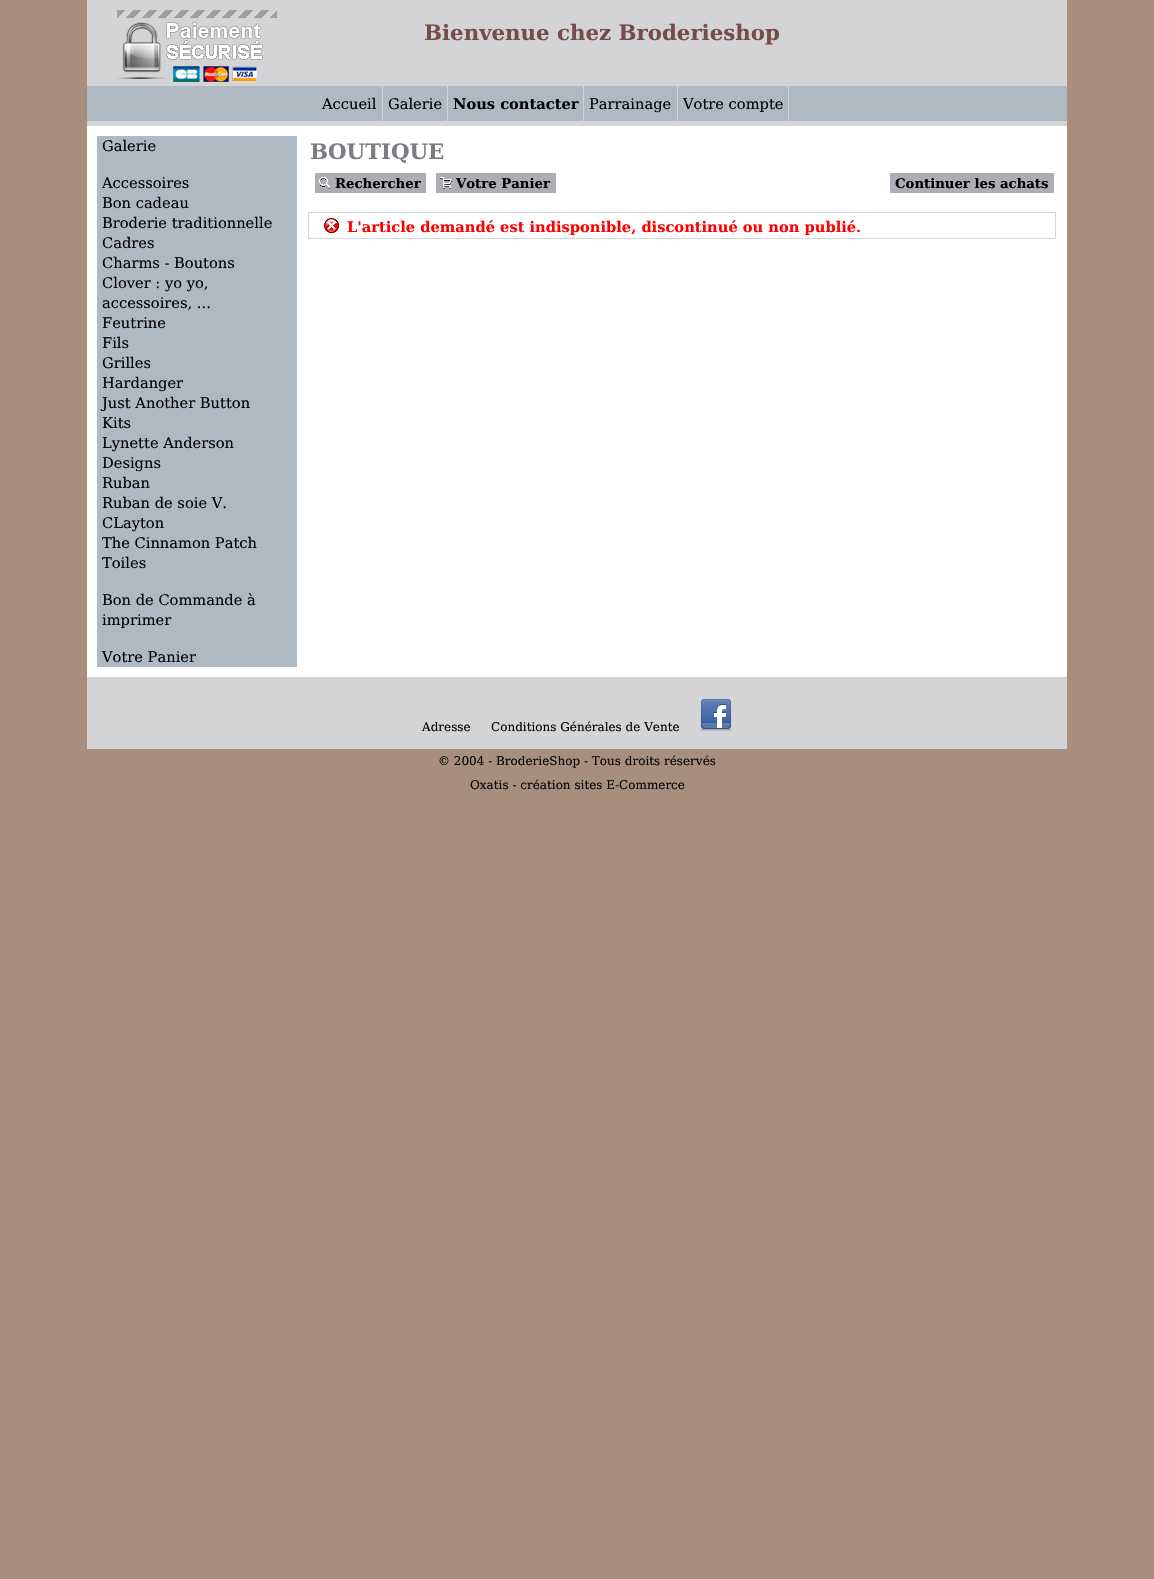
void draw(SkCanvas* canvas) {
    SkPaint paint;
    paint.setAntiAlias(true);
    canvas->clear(0xFFA88F7D);
    paint.setColor(0xFFFFFFFF);
    canvas->drawRect(SkRect::MakeXYWH(87, 126, 980, 551), paint);
    paint.setColor(0xFFD4D4D6);
    canvas->drawRect(SkRect::MakeXYWH(87, 0, 980, 126), paint);
    canvas->drawImageRect(SkImages::DeferredFromEncodedData(SkData::MakeFromFileName("img1.png")), SkRect::MakeXYWH(117, 10, 160, 72), SkSamplingOptions());
    SkFont font1(fontMgr->matchFamilyStyle("DejaVu Serif", SkFontStyle::Bold()), 21.3f);
    font1.setSubpixel(true);
    paint.setColor(0xFF754C4C);
    canvas->drawString("Bienvenue chez Broderieshop", 424, 40, font1, paint);
    paint.setColor(0xFFAFB9C4);
    canvas->drawRect(SkRect::MakeXYWH(87, 86, 980, 35), paint);
    paint.setColor(0xFFD4D4D6);
    canvas->drawRect(SkRect::MakeXYWH(382, 86, 1, 35), paint);
    SkFont font2(fontMgr->matchFamilyStyle("DejaVu Serif", SkFontStyle::Normal()), 14.65f);
    font2.setSubpixel(true);
    paint.setColor(0xFF000000);
    canvas->drawString("Accueil", 322, 109, font2, paint);
    paint.setColor(0xFFD4D4D6);
    canvas->drawRect(SkRect::MakeXYWH(447, 86, 1, 35), paint);
    paint.setColor(0xFF000000);
    canvas->drawString("Galerie", 388, 109, font2, paint);
    paint.setColor(0xFFD4D4D6);
    canvas->drawRect(SkRect::MakeXYWH(583, 86, 1, 35), paint);
    SkFont font3(fontMgr->matchFamilyStyle("DejaVu Serif", SkFontStyle::Bold()), 14.65f);
    font3.setSubpixel(true);
    paint.setColor(0xFF000000);
    canvas->drawString("Nous contacter", 453, 109, font3, paint);
    paint.setColor(0xFFD4D4D6);
    canvas->drawRect(SkRect::MakeXYWH(677, 86, 1, 35), paint);
    paint.setColor(0xFF000000);
    canvas->drawString("Parrainage", 589, 109, font2, paint);
    paint.setColor(0xFFD4D4D6);
    canvas->drawRect(SkRect::MakeXYWH(788, 86, 1, 35), paint);
    paint.setColor(0xFF000000);
    canvas->drawString("Votre compte", 683, 109, font2, paint);
    paint.setColor(0xFFAFB9C4);
    canvas->drawRect(SkRect::MakeXYWH(97, 136, 200, 531), paint);
    paint.setColor(0xFF000000);
    canvas->drawString("Galerie", 102, 151, font2, paint);
    canvas->drawString("Accessoires", 102, 188, font2, paint);
    canvas->drawString("Bon cadeau", 102, 208, font2, paint);
    canvas->drawString("Broderie traditionnelle", 102, 228, font2, paint);
    canvas->drawString("Cadres", 102, 248, font2, paint);
    canvas->drawString("Charms - Boutons", 102, 268, font2, paint);
    canvas->drawString("Clover : yo yo,", 102, 288, font2, paint);
    canvas->drawString("accessoires, ...", 102, 308, font2, paint);
    canvas->drawString("Feutrine", 102, 328, font2, paint);
    canvas->drawString("Fils", 102, 348, font2, paint);
    canvas->drawString("Grilles", 102, 368, font2, paint);
    canvas->drawString("Hardanger", 102, 388, font2, paint);
    canvas->drawString("Just Another Button", 102, 408, font2, paint);
    canvas->drawString("Kits", 102, 428, font2, paint);
    canvas->drawString("Lynette Anderson", 102, 448, font2, paint);
    canvas->drawString("Designs", 102, 468, font2, paint);
    canvas->drawString("Ruban", 102, 488, font2, paint);
    canvas->drawString("Ruban de soie V.", 102, 508, font2, paint);
    canvas->drawString("CLayton", 102, 528, font2, paint);
    canvas->drawString("The Cinnamon Patch", 102, 548, font2, paint);
    canvas->drawString("Toiles", 102, 568, font2, paint);
    canvas->drawString("Bon de Commande à", 102, 605, font2, paint);
    canvas->drawString("imprimer", 102, 625, font2, paint);
    canvas->drawString("Votre Panier", 102, 662, font2, paint);
    paint.setColor(0xFF7C7C82);
    canvas->drawString("BOUTIQUE", 310, 159, font1, paint);
    paint.setColor(0xFFADADB3);
    canvas->drawRect(SkRect::MakeXYWH(315, 173, 111, 20), paint);
    canvas->drawImageRect(SkImages::DeferredFromEncodedData(SkData::MakeFromFileName("img2.png")), SkRect::MakeXYWH(319, 177, 11, 12), SkSamplingOptions());
    SkFont font4(fontMgr->matchFamilyStyle("DejaVu Serif", SkFontStyle::Bold()), 13.25f);
    font4.setSubpixel(true);
    paint.setColor(0xFF000000);
    canvas->drawString("Rechercher", 335, 188, font4, paint);
    paint.setColor(0xFFADADB3);
    canvas->drawRect(SkRect::MakeXYWH(436, 173, 120, 20), paint);
    canvas->drawImageRect(SkImages::DeferredFromEncodedData(SkData::MakeFromFileName("img3.png")), SkRect::MakeXYWH(440, 177, 12, 12), SkSamplingOptions());
    paint.setColor(0xFF000000);
    canvas->drawString("Votre Panier", 456, 188, font4, paint);
    paint.setColor(0xFFADADB3);
    canvas->drawRect(SkRect::MakeXYWH(890, 173, 164, 20), paint);
    paint.setColor(0xFF000000);
    canvas->drawString("Continuer les achats", 895, 188, font4, paint);
    paint.setStyle(SkPaint::kStroke_Style);
    paint.setStrokeWidth(1);
    paint.setColor(0xFFD4D4D6);
    canvas->drawRect(SkRect::MakeXYWH(308.5f, 212.5f, 747, 26), paint);
    canvas->drawImageRect(SkImages::DeferredFromEncodedData(SkData::MakeFromFileName("img4.png")), SkRect::MakeXYWH(323, 218, 16, 15), SkSamplingOptions());
    paint.setStyle(SkPaint::kFill_Style);
    paint.setColor(0xFFFF0000);
    canvas->drawString("L'article demandé est indisponible, discontinué ou non publié.", 347, 232, font3, paint);
    paint.setColor(0xFFD4D4D6);
    canvas->drawRect(SkRect::MakeXYWH(87, 677, 980, 72), paint);
    SkFont font5(fontMgr->matchFamilyStyle("DejaVu Serif", SkFontStyle::Normal()), 12);
    font5.setSubpixel(true);
    paint.setColor(0xFF000000);
    canvas->drawString("Adresse", 422, 731, font5, paint);
    canvas->drawString("Conditions Générales de Vente", 491, 731, font5, paint);
    canvas->drawImageRect(SkImages::DeferredFromEncodedData(SkData::MakeFromFileName("img5.png")), SkRect::MakeXYWH(700, 699, 32, 32), SkSamplingOptions());
    canvas->drawString("© 2004 - BroderieShop - Tous droits réservés", 438, 765, font5, paint);
    canvas->drawString("Oxatis - création sites E-Commerce", 470, 789, font5, paint);
}
